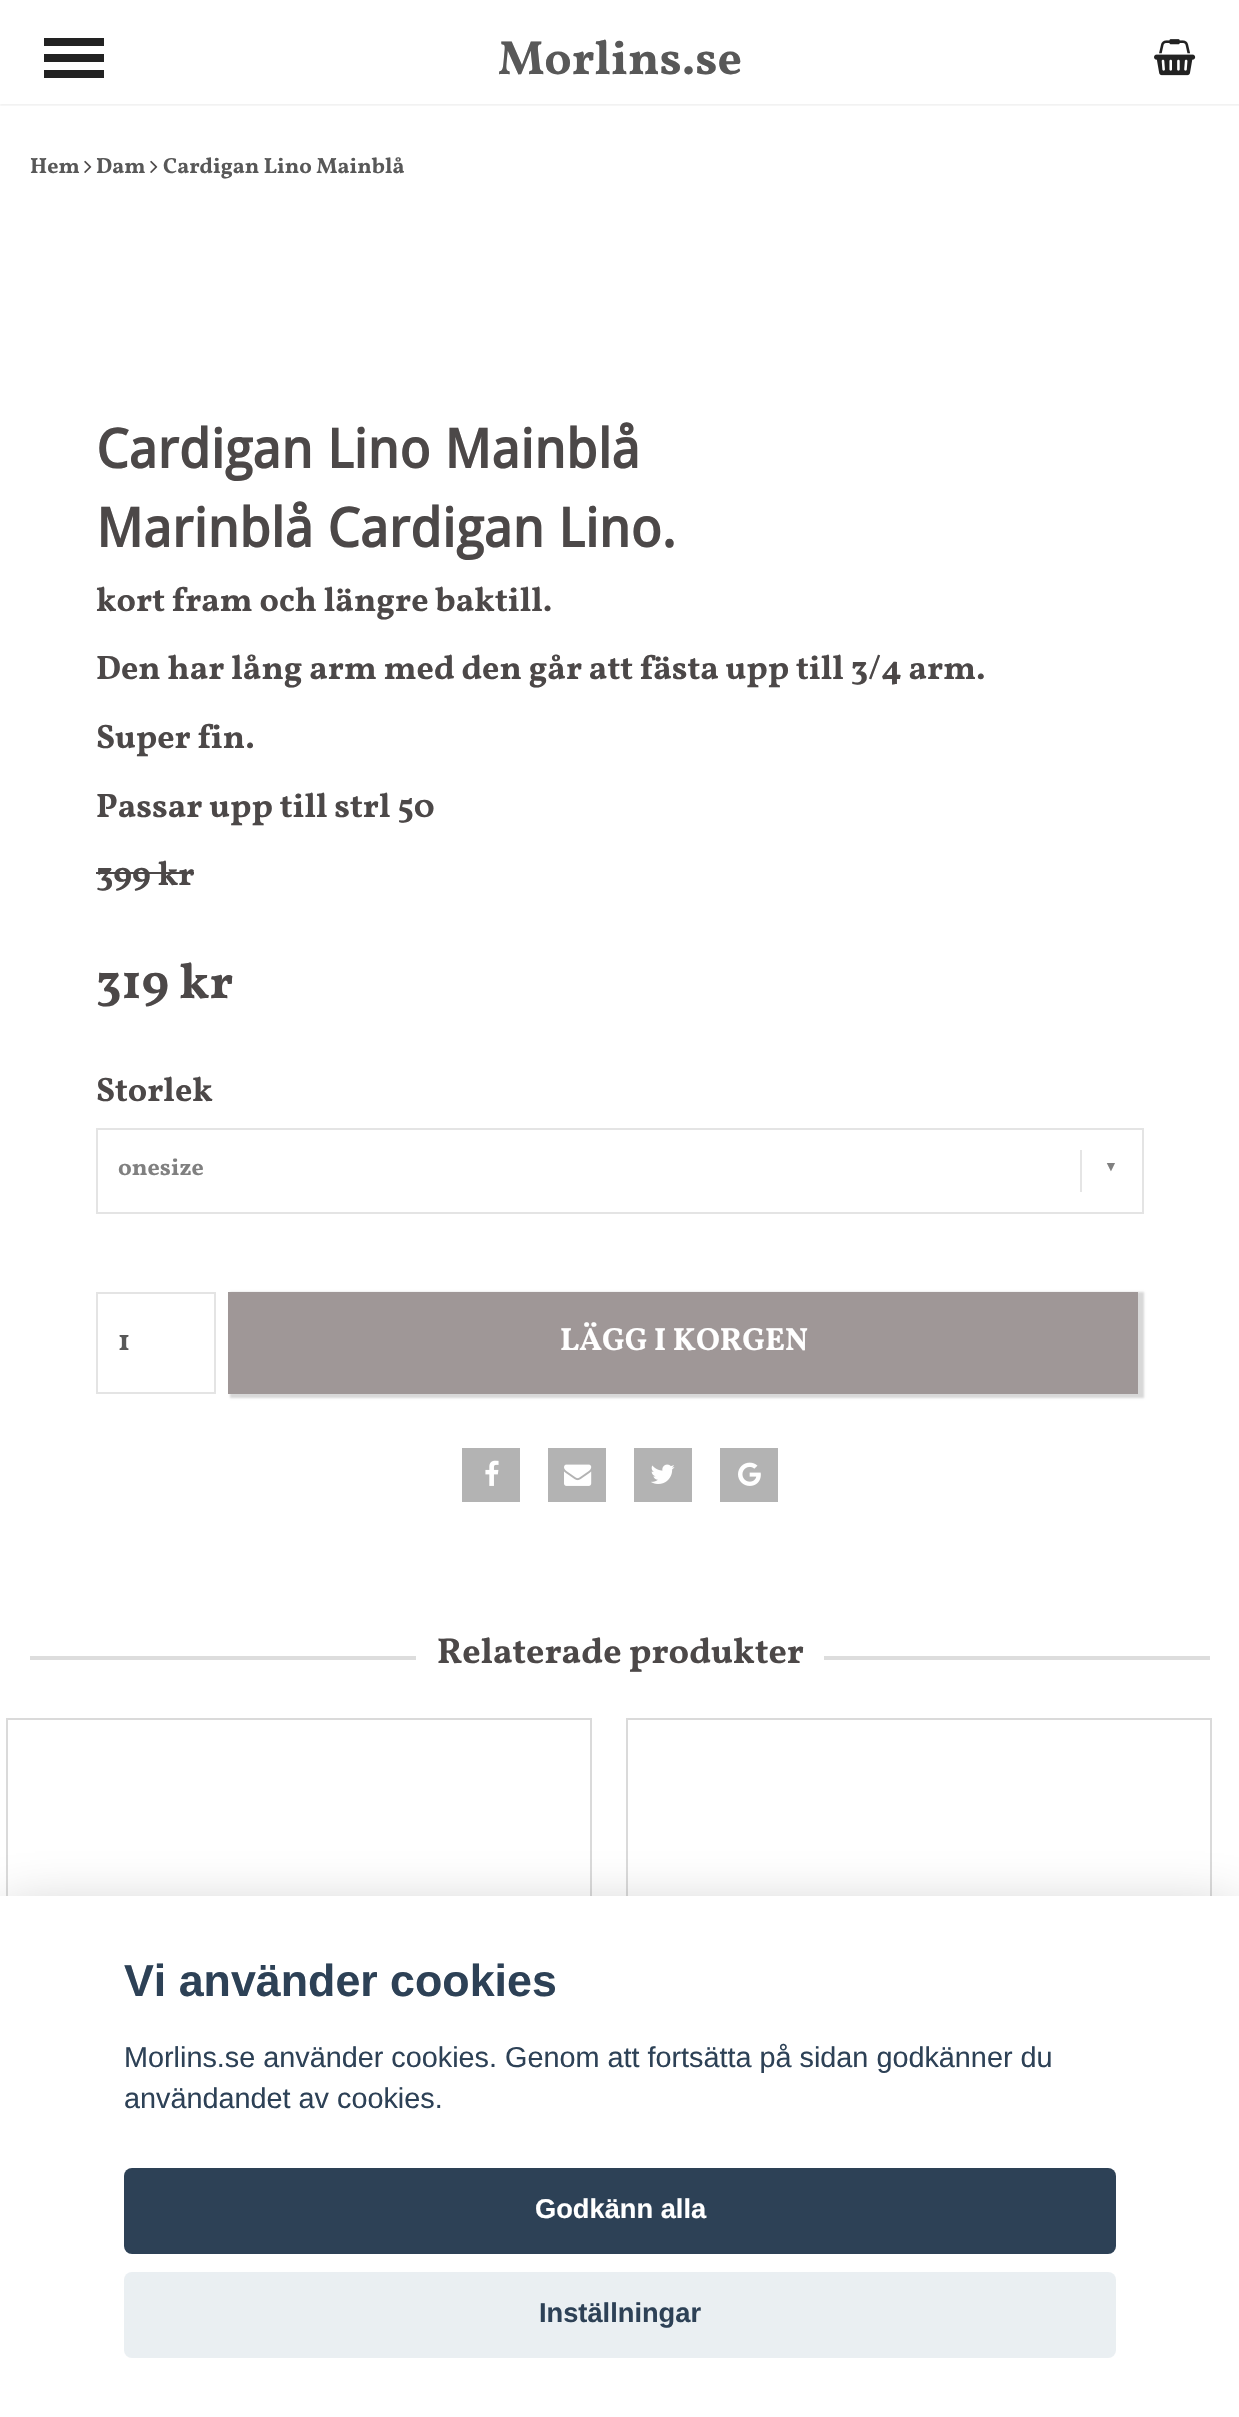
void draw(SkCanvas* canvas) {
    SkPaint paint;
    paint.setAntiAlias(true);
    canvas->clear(0xFFFFFFFF);
    canvas->save();
    canvas->clipRect(SkRect::MakeXYWH(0, 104, 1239, 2));
    paint.setColor(0x0D000000);
    paint.setMaskFilter(SkMaskFilter::MakeBlur(kNormal_SkBlurStyle, 1));
    canvas->drawRect(SkRect::MakeXYWH(0, 2, 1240, 104), paint);
    paint.setMaskFilter(nullptr);
    canvas->restore();
    paint.setColor(0xFF222222);
    canvas->drawRect(SkRect::MakeXYWH(44, 54, 60, 8), paint);
    canvas->drawRect(SkRect::MakeXYWH(44, 38, 60, 8), paint);
    canvas->drawRect(SkRect::MakeXYWH(44, 70, 60, 8), paint);
    SkFont font1(fontMgr->matchFamilyStyle("Vollkorn", SkFontStyle::Bold()), 48);
    font1.setSubpixel(true);
    paint.setColor(0xFF585858);
    canvas->drawString("Morlins.se", 498, 74, font1, paint);
    canvas->drawImageRect(SkImages::DeferredFromEncodedData(SkData::MakeFromFileName("img1.png")), SkRect::MakeXYWH(1154, 39, 42, 37), SkSamplingOptions());
    SkFont font2(fontMgr->matchFamilyStyle("Vollkorn", SkFontStyle::Bold()), 22);
    font2.setSubpixel(true);
    canvas->drawString("Hem", 30, 173, font2, paint);
    canvas->drawImageRect(SkImages::DeferredFromEncodedData(SkData::MakeFromFileName("img2.png")), SkRect::MakeXYWH(84, 160, 8, 13), SkSamplingOptions());
    canvas->drawString("Dam", 96, 173, font2, paint);
    canvas->drawImageRect(SkImages::DeferredFromEncodedData(SkData::MakeFromFileName("img2.png")), SkRect::MakeXYWH(150, 160, 8, 13), SkSamplingOptions());
    canvas->drawString("Cardigan Lino Mainblå", 163, 173, font2, paint);
    SkFont font3(fontMgr->matchFamilyStyle("Droid Sans", SkFontStyle::Bold()), 54);
    font3.setSubpixel(true);
    paint.setColor(0xFF4C4848);
    canvas->drawString("Cardigan Lino Mainblå", 96, 468, font3, paint);
    canvas->drawString("Marinblå Cardigan Lino.", 96, 547, font3, paint);
    SkFont font4(fontMgr->matchFamilyStyle("Vollkorn", SkFontStyle::Bold()), 34);
    font4.setSubpixel(true);
    canvas->drawString("kort fram och längre baktill.", 96, 611, font4, paint);
    canvas->drawString("Den har lång arm med den går att fästa upp till 3/4 arm.", 96, 679, font4, paint);
    canvas->drawString("Super fin.", 96, 748, font4, paint);
    canvas->drawString("Passar upp till strl 50", 96, 817, font4, paint);
    canvas->drawString("399 kr", 96, 885, font4, paint);
    canvas->drawRect(SkRect::MakeXYWH(96, 872, 98, 2), paint);
    SkFont font5(fontMgr->matchFamilyStyle("Vollkorn", SkFontStyle::Bold()), 50);
    font5.setSubpixel(true);
    canvas->drawString("319 kr", 96, 998, font5, paint);
    canvas->drawString("Storlek", 96, 1101, font4, paint);
    paint.setStyle(SkPaint::kStroke_Style);
    paint.setStrokeWidth(2);
    paint.setColor(0xFFE4E4E4);
    canvas->drawRect(SkRect::MakeXYWH(97, 1129, 1046, 84), paint);
    SkFont font6(fontMgr->matchFamilyStyle("Vollkorn", SkFontStyle::Bold()), 24);
    font6.setSubpixel(true);
    paint.setStyle(SkPaint::kFill_Style);
    paint.setColor(0xFF808080);
    canvas->drawString("onesize", 118, 1175, font6, paint);
    paint.setColor(0xFFE5E5E5);
    canvas->drawRect(SkRect::MakeXYWH(1080, 1150, 2, 42), paint);
    SkFont font7(fontMgr->matchFamilyStyle("Liberation Serif", SkFontStyle::Bold()), 14);
    font7.setSubpixel(true);
    paint.setColor(0xFF808080);
    canvas->drawString("▼", 1104, 1171, font7, paint);
    paint.setStyle(SkPaint::kStroke_Style);
    paint.setColor(0xFFE4E4E4);
    canvas->drawRect(SkRect::MakeXYWH(97, 1293, 118, 100), paint);
    SkFont font8(fontMgr->matchFamilyStyle("Vollkorn", SkFontStyle::Bold()), 30);
    font8.setSubpixel(true);
    paint.setStyle(SkPaint::kFill_Style);
    paint.setColor(0xFF585858);
    canvas->drawString("1", 118, 1350, font8, paint);
    paint.setColor(0xFFD8D8D8);
    paint.setMaskFilter(SkMaskFilter::MakeBlur(kNormal_SkBlurStyle, 1));
    canvas->drawRect(SkRect::MakeXYWH(230, 1292, 914, 106), paint);
    paint.setMaskFilter(nullptr);
    paint.setColor(0xFF9F9797);
    canvas->drawRect(SkRect::MakeXYWH(228, 1292, 910, 102), paint);
    SkFont font9(fontMgr->matchFamilyStyle("Vollkorn", SkFontStyle::Bold()), 32);
    font9.setSubpixel(true);
    paint.setColor(0xFFFFFFFF);
    canvas->drawString("LÄGG I KORGEN", 560, 1350, font9, paint);
    paint.setColor(0xFFB3B3B3);
    canvas->drawRect(SkRect::MakeXYWH(462, 1448, 58, 54), paint);
    canvas->drawImageRect(SkImages::DeferredFromEncodedData(SkData::MakeFromFileName("img3.png")), SkRect::MakeXYWH(485, 1460, 14, 26), SkSamplingOptions());
    canvas->drawRect(SkRect::MakeXYWH(548, 1448, 58, 54), paint);
    canvas->drawImageRect(SkImages::DeferredFromEncodedData(SkData::MakeFromFileName("img4.png")), SkRect::MakeXYWH(564, 1464, 28, 22), SkSamplingOptions());
    canvas->drawRect(SkRect::MakeXYWH(634, 1448, 58, 54), paint);
    canvas->drawImageRect(SkImages::DeferredFromEncodedData(SkData::MakeFromFileName("img5.png")), SkRect::MakeXYWH(651, 1464, 24, 20), SkSamplingOptions());
    canvas->drawRect(SkRect::MakeXYWH(720, 1448, 58, 54), paint);
    canvas->drawImageRect(SkImages::DeferredFromEncodedData(SkData::MakeFromFileName("img6.png")), SkRect::MakeXYWH(738, 1462, 23, 24), SkSamplingOptions());
    paint.setColor(0xFFDDDDDD);
    canvas->drawRect(SkRect::MakeXYWH(30, 1656, 386, 4), paint);
    SkFont font10(fontMgr->matchFamilyStyle("Vollkorn", SkFontStyle::Bold()), 36);
    font10.setSubpixel(true);
    paint.setColor(0xFF4C4848);
    canvas->drawString("Relaterade produkter", 437, 1663, font10, paint);
    paint.setColor(0xFFDDDDDD);
    canvas->drawRect(SkRect::MakeXYWH(824, 1656, 386, 4), paint);
    paint.setStyle(SkPaint::kStroke_Style);
    paint.setColor(0xFFDADADA);
    canvas->drawRect(SkRect::MakeXYWH(7, 1719, 584, 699), paint);
    canvas->drawRect(SkRect::MakeXYWH(627, 1719, 584, 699), paint);
    paint.setStyle(SkPaint::kFill_Style);
    paint.setColor(0x47020203);
    paint.setMaskFilter(SkMaskFilter::MakeBlur(kNormal_SkBlurStyle, 30));
    canvas->drawRect(SkRect::MakeXYWH(0, 1916, 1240, 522), paint);
    paint.setMaskFilter(nullptr);
    paint.setColor(0xFFFFFFFF);
    canvas->drawRect(SkRect::MakeXYWH(0, 1896, 1239, 521), paint);
    SkFont font11(fontMgr->matchFamilyStyle("Liberation Sans", SkFontStyle::Bold()), 44.75f);
    font11.setSubpixel(true);
    paint.setColor(0xFF2D4156);
    canvas->drawString("Vi använder cookies", 124, 1996, font11, paint);
    SkFont font12(fontMgr->matchFamilyStyle("Liberation Sans", SkFontStyle::Normal()), 28.8f);
    font12.setSubpixel(true);
    canvas->drawString("Morlins.se använder cookies. Genom att fortsätta på sidan godkänner du", 124, 2067, font12, paint);
    canvas->drawString("användandet av cookies.", 124, 2108, font12, paint);
    canvas->drawRoundRect(SkRect::MakeXYWH(124, 2168, 992, 86), 8, 8, paint);
    SkFont font13(fontMgr->matchFamilyStyle("Liberation Sans", SkFontStyle::Bold()), 27.25f);
    font13.setSubpixel(true);
    paint.setColor(0xFFFFFFFF);
    canvas->drawString("Godkänn alla", 535, 2218, font13, paint);
    paint.setColor(0xFFEAEFF2);
    canvas->drawRoundRect(SkRect::MakeXYWH(124, 2272, 992, 86), 8, 8, paint);
    paint.setColor(0xFF2D4156);
    canvas->drawString("Inställningar", 539, 2322, font13, paint);
}
